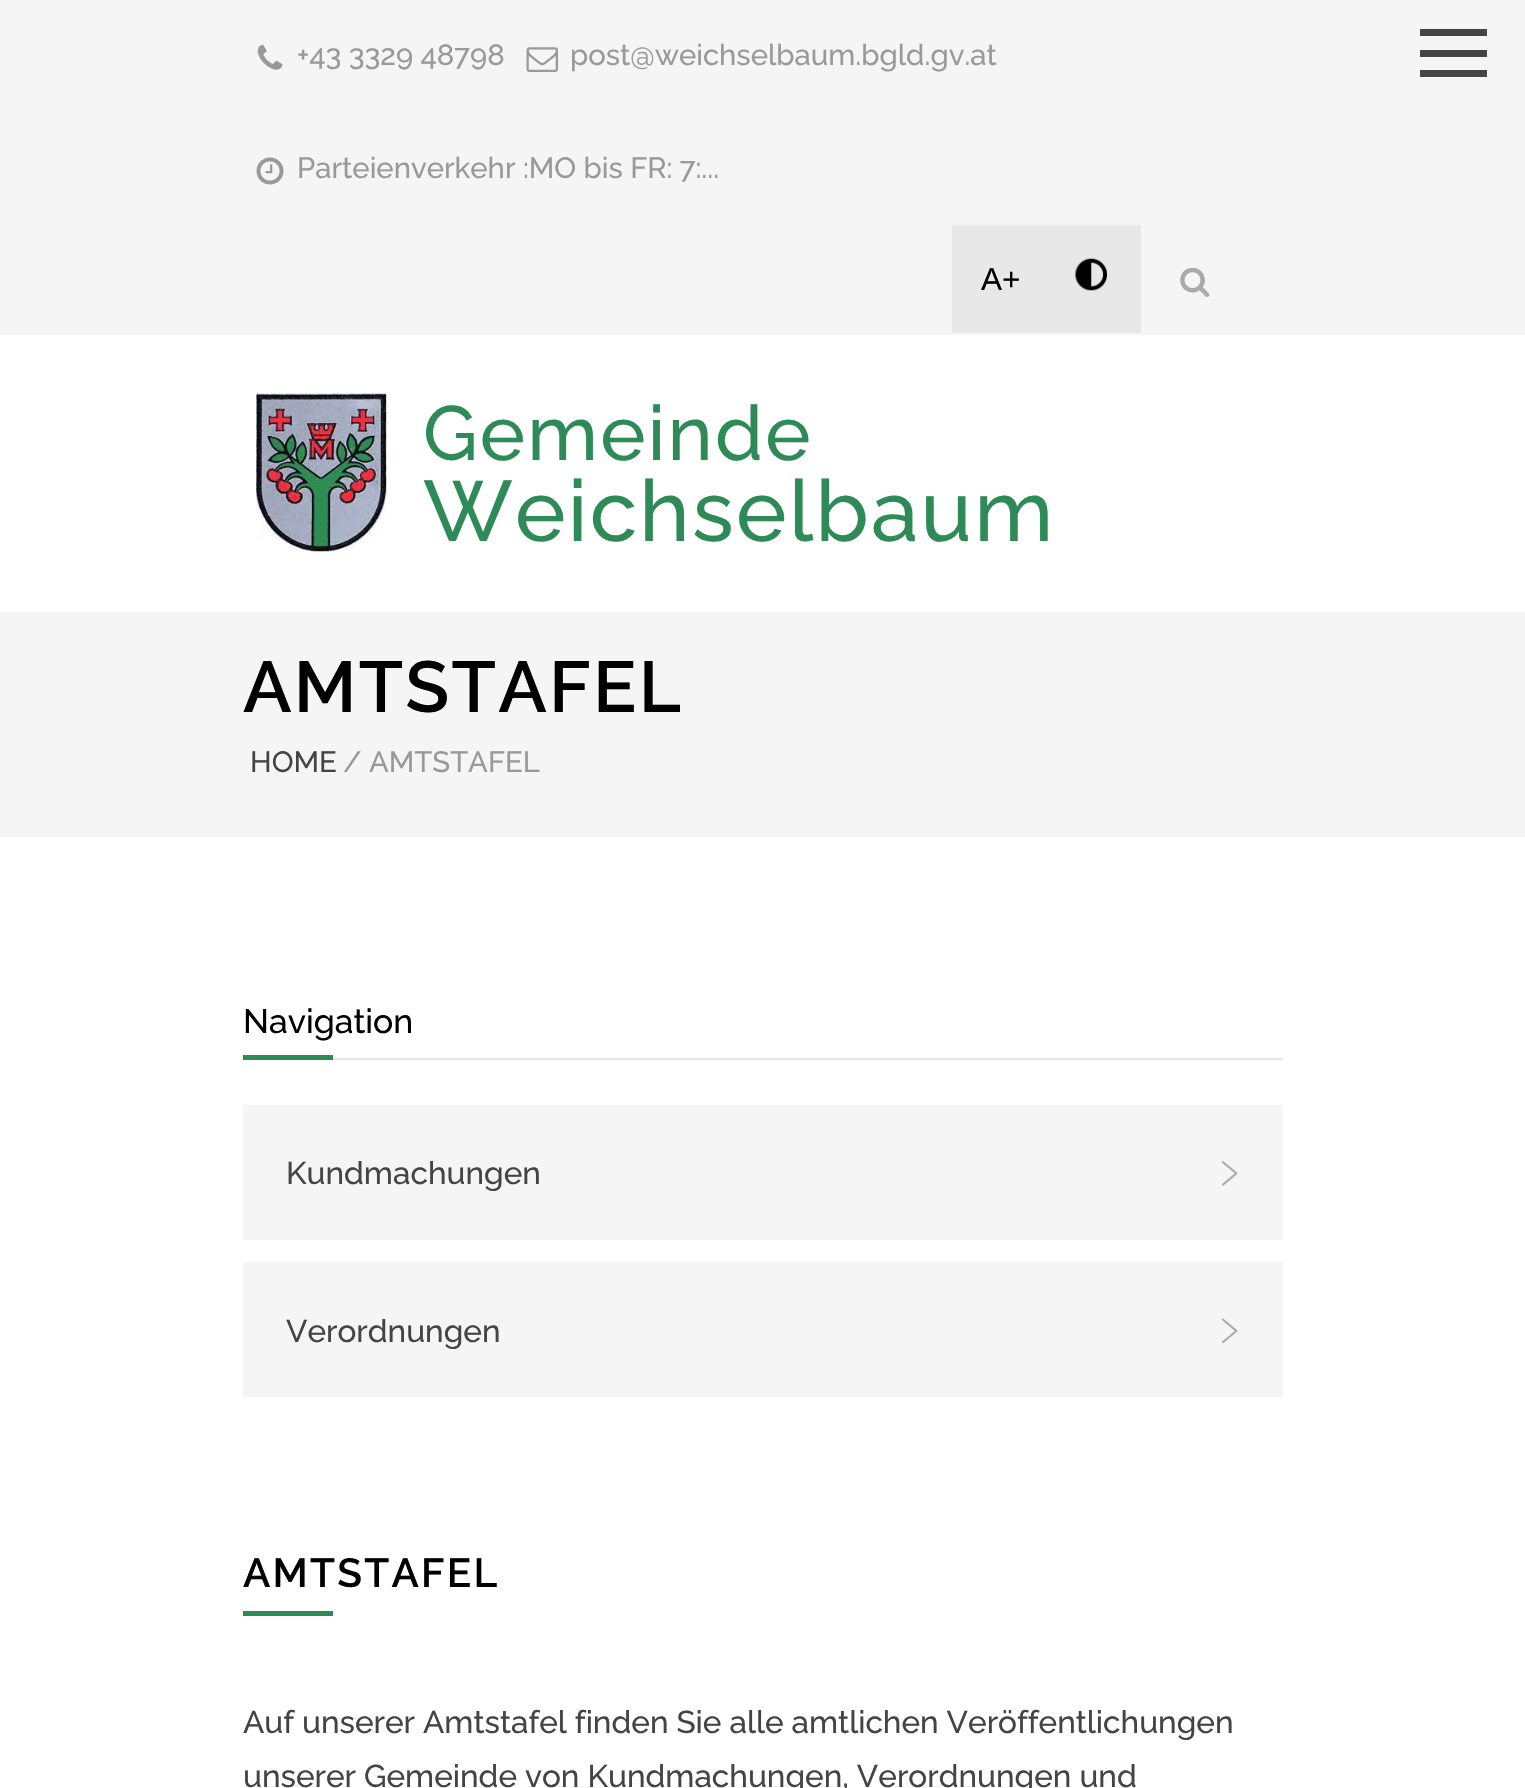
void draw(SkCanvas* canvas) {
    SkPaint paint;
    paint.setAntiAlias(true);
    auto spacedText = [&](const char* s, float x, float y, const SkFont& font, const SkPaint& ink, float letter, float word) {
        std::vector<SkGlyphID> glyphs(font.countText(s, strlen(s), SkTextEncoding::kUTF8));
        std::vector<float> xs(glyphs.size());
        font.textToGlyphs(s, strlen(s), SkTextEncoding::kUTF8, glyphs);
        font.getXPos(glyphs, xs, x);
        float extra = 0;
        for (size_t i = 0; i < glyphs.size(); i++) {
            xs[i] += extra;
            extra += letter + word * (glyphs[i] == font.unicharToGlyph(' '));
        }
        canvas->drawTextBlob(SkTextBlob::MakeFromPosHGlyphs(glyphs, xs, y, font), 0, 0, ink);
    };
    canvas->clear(0xFFFFFFFF);
    paint.setColor(0xFFF5F5F5);
    canvas->drawRect(SkRect::MakeXYWH(0, 0, 1525, 335), paint);
    canvas->drawImageRect(SkImages::DeferredFromEncodedData(SkData::MakeFromFileName("img1.png")), SkRect::MakeXYWH(257, 45, 26, 25), SkSamplingOptions());
    SkFont font1(fontMgr->matchFamilyStyle("Raleway", SkFontStyle(500, SkFontStyle::kNormal_Width, SkFontStyle::kUpright_Slant)), 29.25f);
    font1.setSubpixel(true);
    paint.setColor(0xFF999999);
    canvas->drawString("+43 3329 48798", 297, 65, font1, paint);
    canvas->drawImageRect(SkImages::DeferredFromEncodedData(SkData::MakeFromFileName("img2.png")), SkRect::MakeXYWH(526, 47, 32, 25), SkSamplingOptions());
    canvas->drawString("post@weichselbaum.bgld.gv.at", 570, 65, font1, paint);
    canvas->drawImageRect(SkImages::DeferredFromEncodedData(SkData::MakeFromFileName("img3.png")), SkRect::MakeXYWH(256, 157, 28, 28), SkSamplingOptions());
    canvas->drawString("Parteienverkehr :MO bis FR: 7:...", 297, 178, font1, paint);
    paint.setColor(0xFFE8E8E8);
    canvas->drawRect(SkRect::MakeXYWH(952, 225, 189, 108), paint);
    SkFont font2(fontMgr->matchFamilyStyle("Liberation Sans", SkFontStyle::Normal()), 31.5f);
    font2.setSubpixel(true);
    paint.setColor(0xFF000000);
    canvas->drawString("A+", 981, 290, font2, paint);
    canvas->drawImageRect(SkImages::DeferredFromEncodedData(SkData::MakeFromFileName("img4.png")), SkRect::MakeXYWH(1075, 258, 32, 33), SkSamplingOptions());
    canvas->drawImageRect(SkImages::DeferredFromEncodedData(SkData::MakeFromFileName("img5.png")), SkRect::MakeXYWH(1180, 267, 30, 30), SkSamplingOptions());
    paint.setColor(0xFF444444);
    canvas->drawRect(SkRect::MakeXYWH(1420, 29, 67, 7), paint);
    canvas->drawRect(SkRect::MakeXYWH(1420, 50, 67, 7), paint);
    canvas->drawRect(SkRect::MakeXYWH(1420, 70, 67, 7), paint);
    canvas->drawImageRect(SkImages::DeferredFromEncodedData(SkData::MakeFromFileName("img6.png")), SkRect::MakeXYWH(256, 393, 131, 159), SkSamplingOptions());
    SkFont font3(fontMgr->matchFamilyStyle("Raleway", SkFontStyle(500, SkFontStyle::kNormal_Width, SkFontStyle::kUpright_Slant)), 76.5f);
    font3.setSubpixel(true);
    paint.setColor(0xFF2E8B57);
    spacedText("Gemeinde", 423, 460, font3, paint, 2.25f, 0);
    SkFont font4(fontMgr->matchFamilyStyle("Raleway", SkFontStyle(500, SkFontStyle::kNormal_Width, SkFontStyle::kUpright_Slant)), 85.5f);
    font4.setSubpixel(true);
    spacedText("Weichselbaum", 423, 541, font4, paint, 2.25f, 0);
    paint.setColor(0xFFF5F5F5);
    canvas->drawRect(SkRect::MakeXYWH(0, 612, 1525, 225), paint);
    SkFont font5(fontMgr->matchFamilyStyle("Raleway", SkFontStyle(600, SkFontStyle::kNormal_Width, SkFontStyle::kUpright_Slant)), 72);
    font5.setSubpixel(true);
    paint.setColor(0xFF000000);
    spacedText("AMTSTAFEL", 243, 712, font5, paint, 2.25f, 0);
    paint.setColor(0xFF444444);
    canvas->drawString("HOME", 250, 772, font1, paint);
    paint.setColor(0xFF999999);
    canvas->drawString("/", 343, 772, font1, paint);
    canvas->drawString("AMTSTAFEL", 369, 772, font1, paint);
    paint.setColor(0xFFE2E6E7);
    canvas->drawRect(SkRect::MakeXYWH(333, 1058, 950, 2), paint);
    SkFont font6(fontMgr->matchFamilyStyle("Raleway", SkFontStyle(500, SkFontStyle::kNormal_Width, SkFontStyle::kUpright_Slant)), 33.75f);
    font6.setSubpixel(true);
    paint.setColor(0xFF000000);
    canvas->drawString("Navigation", 243, 1033, font6, paint);
    paint.setColor(0xFF2E8B57);
    canvas->drawRect(SkRect::MakeXYWH(243, 1055, 90, 5), paint);
    paint.setColor(0xFFF5F5F5);
    canvas->drawRect(SkRect::MakeXYWH(243, 1105, 1040, 135), paint);
    SkFont font7(fontMgr->matchFamilyStyle("Raleway", SkFontStyle(500, SkFontStyle::kNormal_Width, SkFontStyle::kUpright_Slant)), 31.5f);
    font7.setSubpixel(true);
    paint.setColor(0xFF444444);
    canvas->drawString("Kundmachungen", 286, 1184, font7, paint);
    canvas->drawImageRect(SkImages::DeferredFromEncodedData(SkData::MakeFromFileName("img7.png")), SkRect::MakeXYWH(1221, 1161, 17, 25), SkSamplingOptions());
    paint.setColor(0xFFF5F5F5);
    canvas->drawRect(SkRect::MakeXYWH(243, 1262, 1040, 135), paint);
    paint.setColor(0xFF444444);
    canvas->drawString("Verordnungen", 286, 1342, font7, paint);
    canvas->drawImageRect(SkImages::DeferredFromEncodedData(SkData::MakeFromFileName("img8.png")), SkRect::MakeXYWH(1221, 1318, 17, 26), SkSamplingOptions());
    SkFont font8(fontMgr->matchFamilyStyle("Raleway", SkFontStyle(600, SkFontStyle::kNormal_Width, SkFontStyle::kUpright_Slant)), 40.5f);
    font8.setSubpixel(true);
    paint.setColor(0xFF000000);
    spacedText("AMTSTAFEL", 243, 1587, font8, paint, 2.25f, 0);
    paint.setColor(0xFF2E8B57);
    canvas->drawRect(SkRect::MakeXYWH(243, 1611, 90, 5), paint);
    paint.setColor(0xFF444444);
    canvas->drawString("Auf unserer Amtstafel finden Sie alle amtlichen Veröffentlichungen", 243, 1733, font7, paint);
    canvas->drawString("unserer Gemeinde von Kundmachungen, Verordnungen und", 243, 1787, font7, paint);
}
